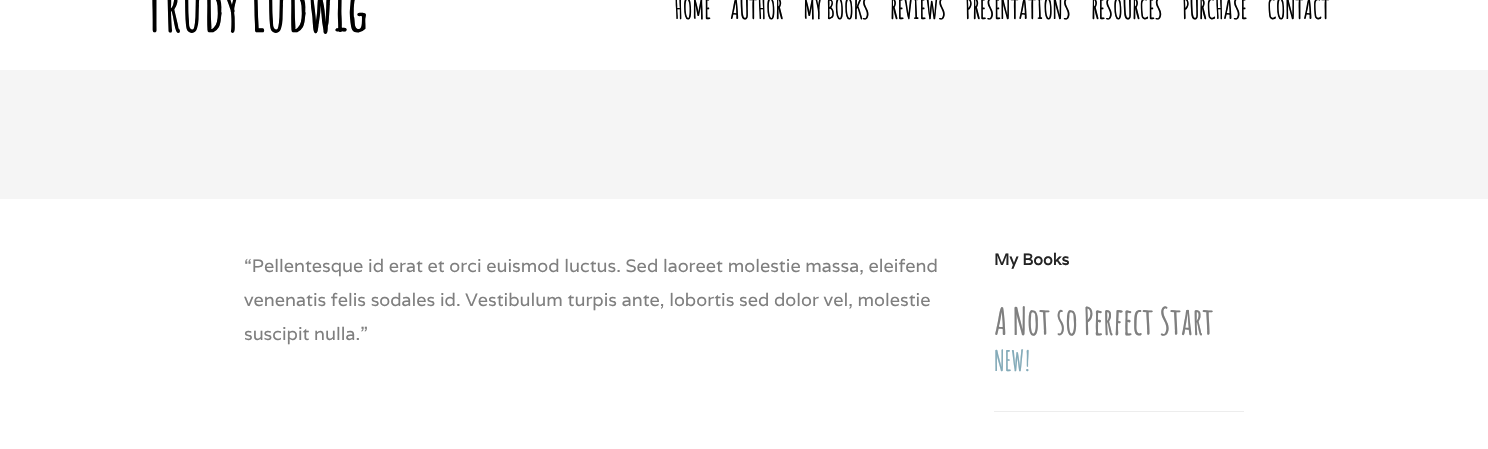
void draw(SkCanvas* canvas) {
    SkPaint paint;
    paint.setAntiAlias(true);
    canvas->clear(0xFFFFFFFF);
    SkFont font1(fontMgr->matchFamilyStyle("Amatic SC", SkFontStyle::Bold()), 60);
    font1.setSubpixel(true);
    paint.setColor(0xFF000000);
    canvas->drawString("Trudy Ludwig", 144, 32, font1, paint);
    SkFont font2(fontMgr->matchFamilyStyle("Amatic SC", SkFontStyle::Bold()), 26);
    font2.setSubpixel(true);
    canvas->drawString("HOME", 674, 19, font2, paint);
    canvas->drawString("AUTHOR", 730, 19, font2, paint);
    canvas->drawString("MY BOOKS", 803, 19, font2, paint);
    canvas->drawString("REVIEWS", 890, 19, font2, paint);
    canvas->drawString("PRESENTATIONS", 965, 19, font2, paint);
    canvas->drawString("RESOURCES", 1091, 19, font2, paint);
    canvas->drawString("PURCHASE", 1182, 19, font2, paint);
    canvas->drawString("CONTACT", 1267, 19, font2, paint);
    paint.setColor(0xFFF5F5F5);
    canvas->drawRect(SkRect::MakeXYWH(0, 70, 1488, 129), paint);
    SkFont font3(fontMgr->matchFamilyStyle("Varela", SkFontStyle::Normal()), 18);
    font3.setSubpixel(true);
    paint.setColor(0xFF7F7F7F);
    canvas->drawString("“Pellentesque id erat et orci euismod luctus. Sed laoreet molestie massa, eleifend", 244, 272, font3, paint);
    canvas->drawString("venenatis felis sodales id. Vestibulum turpis ante, lobortis sed dolor vel, molestie", 244, 306, font3, paint);
    canvas->drawString("suscipit nulla.”", 244, 340, font3, paint);
    SkFont font4(fontMgr->matchFamilyStyle("Varela", SkFontStyle::Bold()), 16);
    font4.setSubpixel(true);
    paint.setColor(0xFF242424);
    canvas->drawString("My Books", 994, 265, font4, paint);
    paint.setColor(0xFFEDEDED);
    canvas->drawRect(SkRect::MakeXYWH(994, 411, 250, 1), paint);
    SkFont font5(fontMgr->matchFamilyStyle("Amatic SC", SkFontStyle::Bold()), 36);
    font5.setSubpixel(true);
    paint.setColor(0xFF7F7F7F);
    canvas->drawString("A Not so Perfect Start", 994, 335, font5, paint);
    SkFont font6(fontMgr->matchFamilyStyle("Amatic SC", SkFontStyle::Bold()), 27);
    font6.setSubpixel(true);
    paint.setColor(0xFF84ABB9);
    canvas->drawString("NEW!", 994, 371, font6, paint);
}
